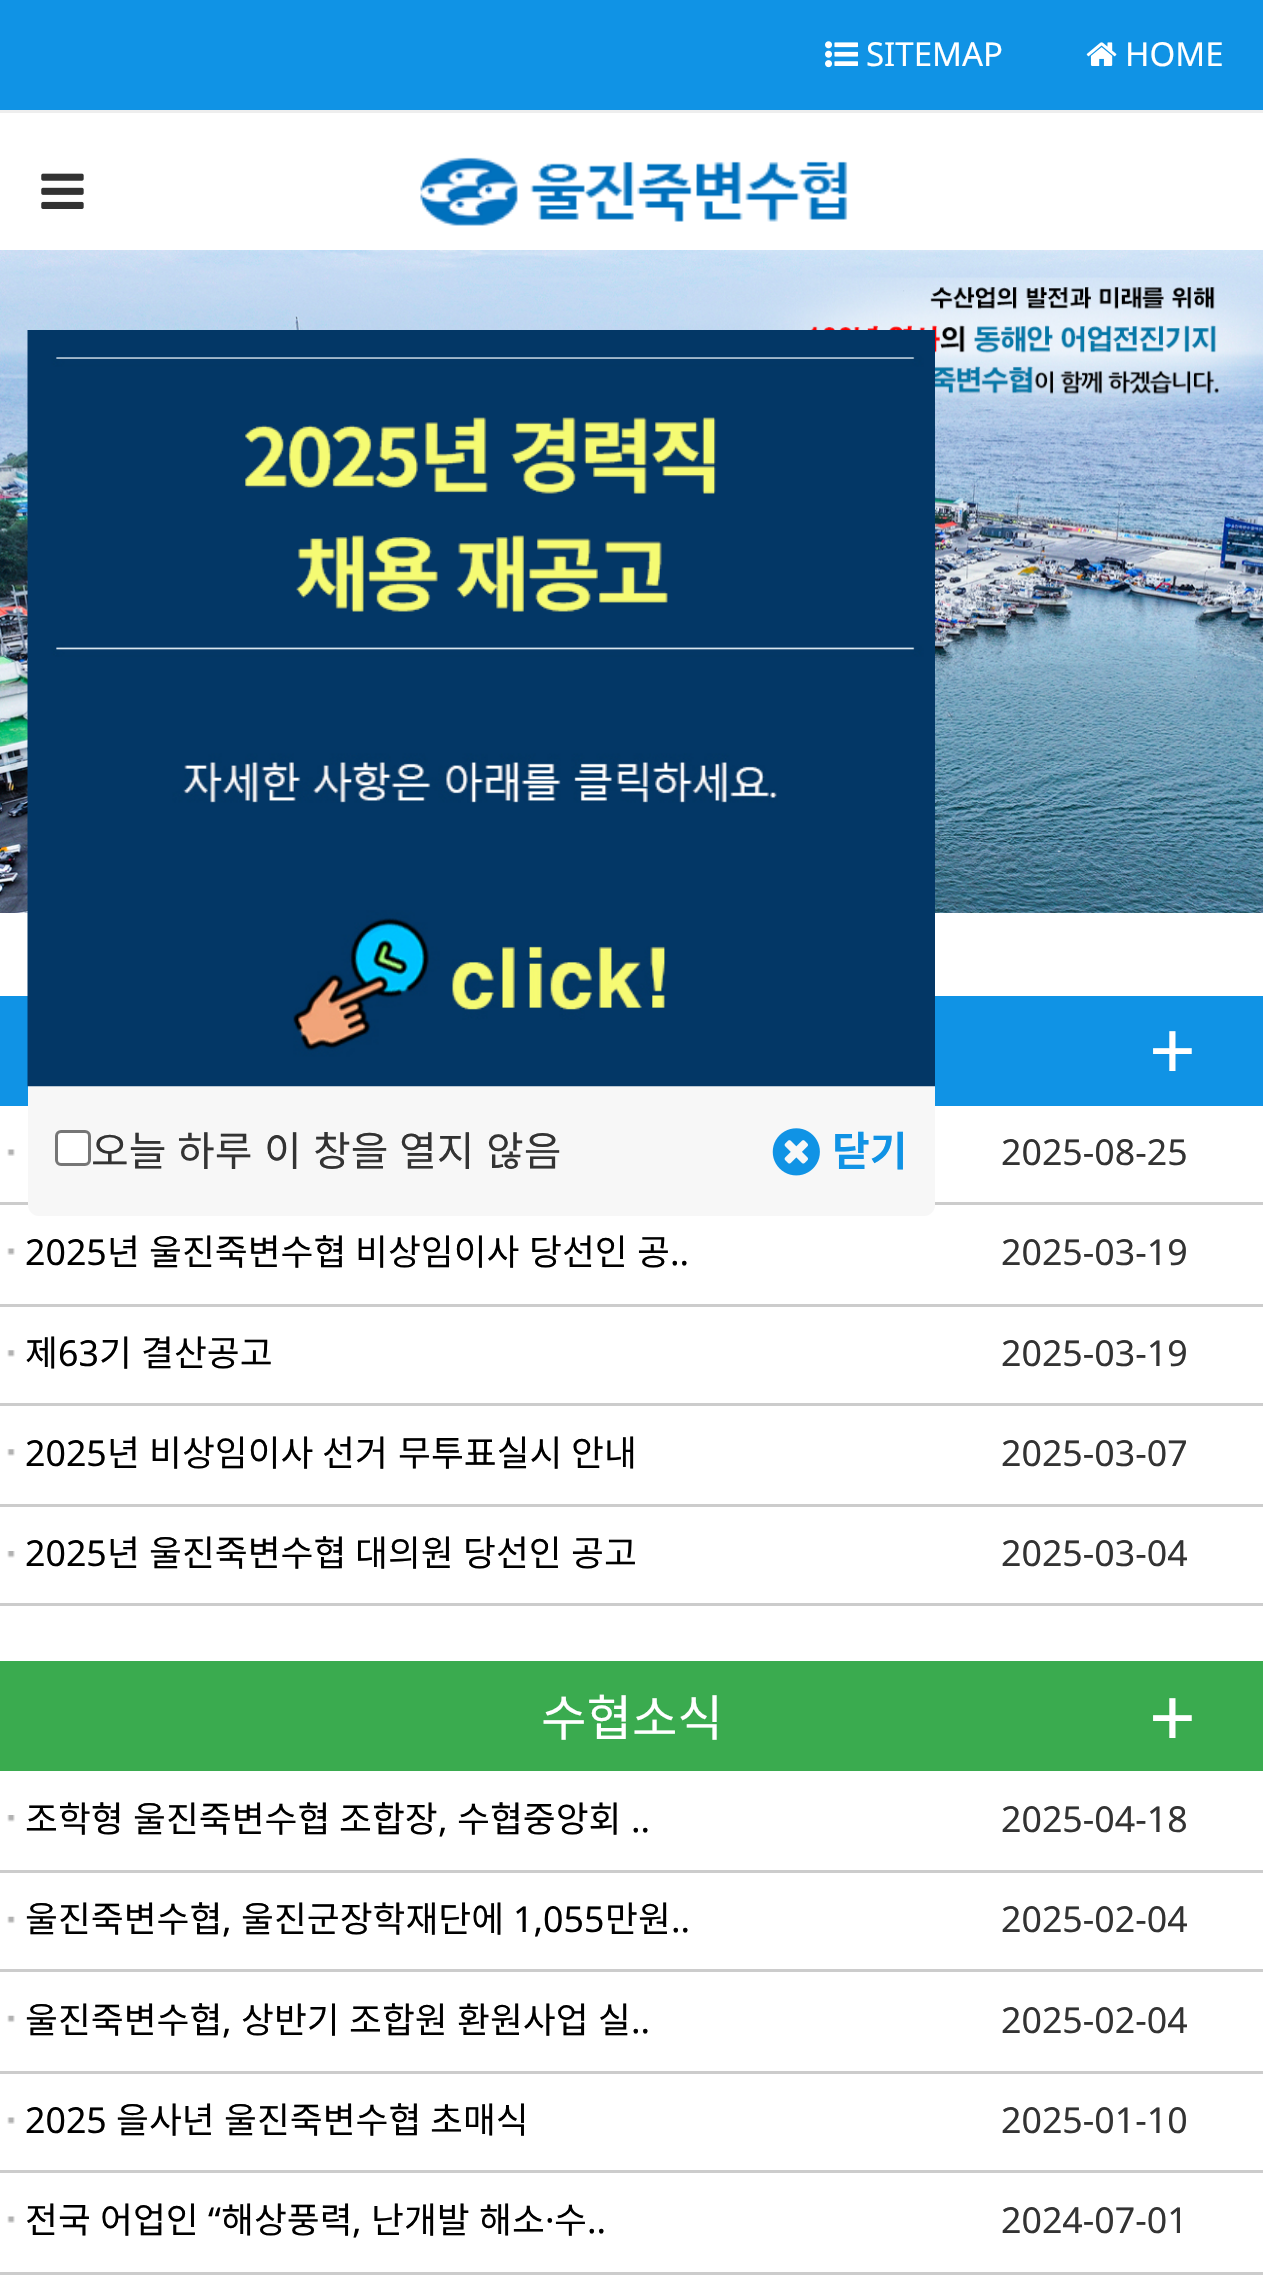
void draw(SkCanvas* canvas) {
    SkPaint paint;
    paint.setAntiAlias(true);
    canvas->clear(0xFFFFFFFF);
    paint.setColor(0xFF1093E5);
    canvas->drawRect(SkRect::MakeXYWH(0, 0, 1263, 110), paint);
    paint.setColor(0xFFEEEEEE);
    canvas->drawRect(SkRect::MakeXYWH(0, 110, 1263, 3), paint);
    canvas->drawImageRect(SkImages::DeferredFromEncodedData(SkData::MakeFromFileName("img1.png")), SkRect::MakeXYWH(825, 41, 33, 27), SkSamplingOptions());
    SkFont font1(fontMgr->matchFamilyStyle("Noto Sans", SkFontStyle::Normal()), 33);
    font1.setSubpixel(true);
    paint.setColor(0xFFFFFFFF);
    canvas->drawString("SITEMAP", 866, 66, font1, paint);
    canvas->drawImageRect(SkImages::DeferredFromEncodedData(SkData::MakeFromFileName("img2.png")), SkRect::MakeXYWH(1086, 42, 31, 24), SkSamplingOptions());
    canvas->drawString("HOME", 1125, 66, font1, paint);
    canvas->drawImageRect(SkImages::DeferredFromEncodedData(SkData::MakeFromFileName("img3.png")), SkRect::MakeXYWH(41, 173, 43, 36), SkSamplingOptions());
    canvas->drawImageRect(SkImages::DeferredFromEncodedData(SkData::MakeFromFileName("img4.png")), SkRect::MakeXYWH(420, 157, 428, 69), SkSamplingOptions());
    canvas->drawImageRect(SkImages::DeferredFromEncodedData(SkData::MakeFromFileName("img5.png")), SkRect::MakeXYWH(0, 250, 1263, 663), SkSamplingOptions());
    paint.setColor(0xFF1093E5);
    canvas->drawRect(SkRect::MakeXYWH(0, 996, 1263, 110), paint);
    SkFont font2(fontMgr->matchFamilyStyle("Noto Sans", SkFontStyle::Normal()), 82);
    font2.setSubpixel(true);
    paint.setColor(0xFFFFFFFF);
    canvas->drawString("+", 1149, 1080, font2, paint);
    paint.setColor(0xFFCCCCCC);
    canvas->drawRect(SkRect::MakeXYWH(0, 1202, 1263, 3), paint);
    canvas->drawImageRect(SkImages::DeferredFromEncodedData(SkData::MakeFromFileName("img6.png")), SkRect::MakeXYWH(7, 1149, 8, 7), SkSamplingOptions());
    SkFont font3(fontMgr->matchFamilyStyle("Noto Sans", SkFontStyle::Normal()), 35.75f);
    font3.setSubpixel(true);
    paint.setColor(0xFF333333);
    canvas->drawString("2025-08-25", 1001, 1165, font3, paint);
    paint.setColor(0xFFCCCCCC);
    canvas->drawRect(SkRect::MakeXYWH(0, 1304, 1263, 3), paint);
    canvas->drawImageRect(SkImages::DeferredFromEncodedData(SkData::MakeFromFileName("img6.png")), SkRect::MakeXYWH(7, 1248, 8, 7), SkSamplingOptions());
    paint.setColor(0xFF000000);
    canvas->drawString("2025", 25, 1265, font3, paint);
    SkFont font4(fontMgr->matchFamilyStyle("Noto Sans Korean", SkFontStyle::Normal()), 35.75f);
    font4.setSubpixel(true);
    canvas->drawString("년", 107, 1265, font4, paint);
    canvas->drawString("울진죽변수협", 149, 1265, font4, paint);
    canvas->drawString("비상임이사", 355, 1265, font4, paint);
    canvas->drawString("당선인", 529, 1265, font4, paint);
    canvas->drawString("공", 637, 1265, font4, paint);
    canvas->drawString("..", 670, 1265, font3, paint);
    paint.setColor(0xFF333333);
    canvas->drawString("2025-03-19", 1001, 1265, font3, paint);
    paint.setColor(0xFFCCCCCC);
    canvas->drawRect(SkRect::MakeXYWH(0, 1403, 1263, 3), paint);
    canvas->drawImageRect(SkImages::DeferredFromEncodedData(SkData::MakeFromFileName("img7.png")), SkRect::MakeXYWH(7, 1350, 8, 7), SkSamplingOptions());
    paint.setColor(0xFF000000);
    canvas->drawString("제", 25, 1366, font4, paint);
    canvas->drawString("63", 58, 1366, font3, paint);
    canvas->drawString("기", 99, 1366, font4, paint);
    canvas->drawString("결산공고", 141, 1366, font4, paint);
    paint.setColor(0xFF333333);
    canvas->drawString("2025-03-19", 1001, 1366, font3, paint);
    paint.setColor(0xFFCCCCCC);
    canvas->drawRect(SkRect::MakeXYWH(0, 1504, 1263, 3), paint);
    canvas->drawImageRect(SkImages::DeferredFromEncodedData(SkData::MakeFromFileName("img7.png")), SkRect::MakeXYWH(7, 1449, 8, 7), SkSamplingOptions());
    paint.setColor(0xFF000000);
    canvas->drawString("2025", 25, 1466, font3, paint);
    canvas->drawString("년", 107, 1466, font4, paint);
    canvas->drawString("비상임이사", 149, 1466, font4, paint);
    canvas->drawString("선거", 322, 1466, font4, paint);
    canvas->drawString("무투표실시", 398, 1466, font4, paint);
    canvas->drawString("안내", 571, 1466, font4, paint);
    paint.setColor(0xFF333333);
    canvas->drawString("2025-03-07", 1001, 1466, font3, paint);
    paint.setColor(0xFFCCCCCC);
    canvas->drawRect(SkRect::MakeXYWH(0, 1603, 1263, 3), paint);
    canvas->drawImageRect(SkImages::DeferredFromEncodedData(SkData::MakeFromFileName("img8.png")), SkRect::MakeXYWH(7, 1551, 8, 7), SkSamplingOptions());
    paint.setColor(0xFF000000);
    canvas->drawString("2025", 25, 1566, font3, paint);
    canvas->drawString("년", 107, 1566, font4, paint);
    canvas->drawString("울진죽변수협", 149, 1566, font4, paint);
    canvas->drawString("대의원", 355, 1566, font4, paint);
    canvas->drawString("당선인", 463, 1566, font4, paint);
    canvas->drawString("공고", 571, 1566, font4, paint);
    paint.setColor(0xFF333333);
    canvas->drawString("2025-03-04", 1001, 1566, font3, paint);
    paint.setColor(0xFF3AAB4F);
    canvas->drawRect(SkRect::MakeXYWH(0, 1661, 1263, 110), paint);
    SkFont font5(fontMgr->matchFamilyStyle("Noto Sans Korean", SkFontStyle::Normal()), 49.5f);
    font5.setSubpixel(true);
    paint.setColor(0xFFFFFFFF);
    canvas->drawString("수협소식", 541, 1736, font5, paint);
    canvas->drawString("+", 1149, 1747, font2, paint);
    paint.setColor(0xFFCCCCCC);
    canvas->drawRect(SkRect::MakeXYWH(0, 1870, 1263, 3), paint);
    canvas->drawImageRect(SkImages::DeferredFromEncodedData(SkData::MakeFromFileName("img8.png")), SkRect::MakeXYWH(7, 1815, 8, 7), SkSamplingOptions());
    paint.setColor(0xFF000000);
    canvas->drawString("조학형", 25, 1832, font4, paint);
    canvas->drawString("울진죽변수협", 133, 1832, font4, paint);
    canvas->drawString("조합장", 339, 1832, font4, paint);
    canvas->drawString(",", 438, 1832, font3, paint);
    canvas->drawString("수협중앙회", 457, 1832, font4, paint);
    canvas->drawString("..", 631, 1832, font3, paint);
    paint.setColor(0xFF333333);
    canvas->drawString("2025-04-18", 1001, 1832, font3, paint);
    paint.setColor(0xFFCCCCCC);
    canvas->drawRect(SkRect::MakeXYWH(0, 1969, 1263, 3), paint);
    canvas->drawImageRect(SkImages::DeferredFromEncodedData(SkData::MakeFromFileName("img9.png")), SkRect::MakeXYWH(7, 1916, 8, 8), SkSamplingOptions());
    paint.setColor(0xFF000000);
    canvas->drawString("울진죽변수협", 25, 1932, font4, paint);
    canvas->drawString(",", 222, 1932, font3, paint);
    canvas->drawString("울진군장학재단에", 241, 1932, font4, paint);
    canvas->drawString("1,055", 513, 1932, font3, paint);
    canvas->drawString("만원", 605, 1932, font4, paint);
    canvas->drawString("..", 671, 1932, font3, paint);
    paint.setColor(0xFF333333);
    canvas->drawString("2025-02-04", 1001, 1932, font3, paint);
    paint.setColor(0xFFCCCCCC);
    canvas->drawRect(SkRect::MakeXYWH(0, 2071, 1263, 3), paint);
    canvas->drawImageRect(SkImages::DeferredFromEncodedData(SkData::MakeFromFileName("img9.png")), SkRect::MakeXYWH(7, 2015, 8, 8), SkSamplingOptions());
    paint.setColor(0xFF000000);
    canvas->drawString("울진죽변수협", 25, 2033, font4, paint);
    canvas->drawString(",", 222, 2033, font3, paint);
    canvas->drawString("상반기", 241, 2033, font4, paint);
    canvas->drawString("조합원", 349, 2033, font4, paint);
    canvas->drawString("환원사업", 457, 2033, font4, paint);
    canvas->drawString("실", 598, 2033, font4, paint);
    canvas->drawString("..", 631, 2033, font3, paint);
    paint.setColor(0xFF333333);
    canvas->drawString("2025-02-04", 1001, 2033, font3, paint);
    paint.setColor(0xFFCCCCCC);
    canvas->drawRect(SkRect::MakeXYWH(0, 2170, 1263, 3), paint);
    canvas->drawImageRect(SkImages::DeferredFromEncodedData(SkData::MakeFromFileName("img6.png")), SkRect::MakeXYWH(7, 2117, 8, 7), SkSamplingOptions());
    paint.setColor(0xFF000000);
    canvas->drawString("2025", 25, 2133, font3, paint);
    canvas->drawString("을사년", 116, 2133, font4, paint);
    canvas->drawString("울진죽변수협", 224, 2133, font4, paint);
    canvas->drawString("초매식", 430, 2133, font4, paint);
    paint.setColor(0xFF333333);
    canvas->drawString("2025-01-10", 1001, 2133, font3, paint);
    paint.setColor(0xFFCCCCCC);
    canvas->drawRect(SkRect::MakeXYWH(0, 2272, 1263, 3), paint);
    canvas->drawImageRect(SkImages::DeferredFromEncodedData(SkData::MakeFromFileName("img6.png")), SkRect::MakeXYWH(7, 2216, 8, 7), SkSamplingOptions());
    paint.setColor(0xFF000000);
    canvas->drawString("전국", 25, 2233, font4, paint);
    canvas->drawString("어업인", 100, 2233, font4, paint);
    canvas->drawString("“", 208, 2233, font3, paint);
    canvas->drawString("해상풍력", 221, 2233, font4, paint);
    canvas->drawString("난개발", 371, 2233, font4, paint);
    canvas->drawString("해소", 479, 2233, font4, paint);
    canvas->drawString("수", 554, 2233, font4, paint);
    canvas->drawString("·", 545, 2233, font3, paint);
    canvas->drawString(",", 352, 2233, font3, paint);
    canvas->drawString("..", 587, 2233, font3, paint);
    paint.setColor(0xFF333333);
    canvas->drawString("2024-07-01", 1001, 2233, font3, paint);
    paint.setColor(0xFFF7F7F7);
    canvas->drawPath(SkPathBuilder().moveTo(28, 1086).lineTo(935, 1086).lineTo(935, 1205).cubicTo(935, 1211, 930, 1216, 924, 1216).lineTo(39, 1216).cubicTo(33, 1216, 28, 1211, 28, 1205).close().detach(), paint);
    canvas->drawImageRect(SkImages::DeferredFromEncodedData(SkData::MakeFromFileName("img10.png")), SkRect::MakeXYWH(27, 330, 908, 757), SkSamplingOptions());
    paint.setColor(0xFFFFFFFF);
    canvas->drawRoundRect(SkRect::MakeXYWH(56.5f, 1131.5f, 33, 33), 4.5f, 4.5f, paint);
    paint.setStyle(SkPaint::kStroke_Style);
    paint.setStrokeWidth(3);
    paint.setColor(0xFF767676);
    canvas->drawRoundRect(SkRect::MakeXYWH(56.5f, 1131.5f, 33, 33), 4.5f, 4.5f, paint);
    SkFont font6(fontMgr->matchFamilyStyle("Noto Sans Korean", SkFontStyle::Normal()), 41);
    font6.setSubpixel(true);
    paint.setStyle(SkPaint::kFill_Style);
    paint.setColor(0xFF333333);
    canvas->drawString("오늘", 91, 1166, font6, paint);
    canvas->drawString("하루", 177, 1166, font6, paint);
    canvas->drawString("이", 264, 1166, font6, paint);
    canvas->drawString("창을", 313, 1166, font6, paint);
    canvas->drawString("열지", 399, 1166, font6, paint);
    canvas->drawString("않음", 486, 1166, font6, paint);
    canvas->drawImageRect(SkImages::DeferredFromEncodedData(SkData::MakeFromFileName("img11.png")), SkRect::MakeXYWH(772, 1128, 48, 48), SkSamplingOptions());
    SkFont font7(fontMgr->matchFamilyStyle("Noto Sans Korean", SkFontStyle::Bold()), 41);
    font7.setSubpixel(true);
    paint.setColor(0xFF1093E5);
    canvas->drawString("닫기", 832, 1166, font7, paint);
}
